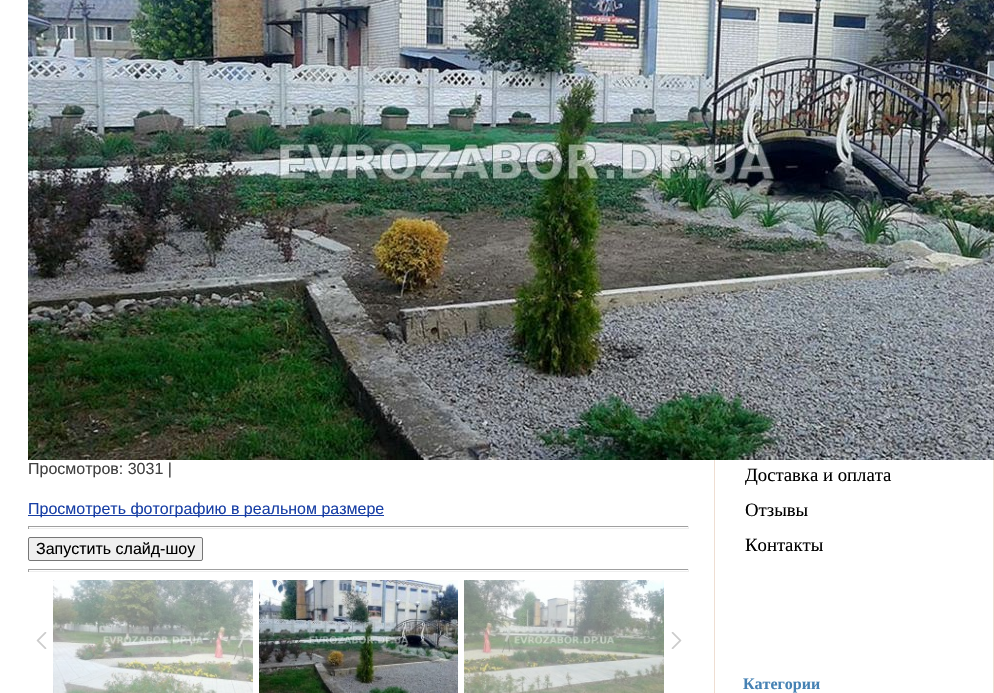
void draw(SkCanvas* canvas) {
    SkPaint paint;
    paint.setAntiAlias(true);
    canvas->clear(0xFFFFFFFF);
    paint.setStyle(SkPaint::kStroke_Style);
    paint.setStrokeWidth(1);
    paint.setColor(0xFFEFDED2);
    canvas->drawRect(SkRect::MakeXYWH(714.5f, -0.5f, 279, 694), paint);
    canvas->drawImageRect(SkImages::DeferredFromEncodedData(SkData::MakeFromFileName("img1.png")), SkRect::MakeXYWH(28, 0, 966, 460), SkSamplingOptions());
    SkFont font1(fontMgr->matchFamilyStyle("Liberation Sans", SkFontStyle::Normal()), 16);
    font1.setSubpixel(true);
    paint.setStyle(SkPaint::kFill_Style);
    paint.setColor(0xFF404040);
    canvas->drawString("Просмотров: 3031 |", 28, 474, font1, paint);
    paint.setColor(0xFF183FA6);
    canvas->drawRect(SkRect::MakeXYWH(28, 515, 356, 1), paint);
    canvas->drawString("Просмотреть фотографию в реальном размере", 28, 514, font1, paint);
    paint.setColor(0xFF9F9F9F);
    canvas->drawRect(SkRect::MakeXYWH(28, 526, 661, 1), paint);
    paint.setColor(0xFFEEEEEE);
    canvas->drawRect(SkRect::MakeXYWH(688, 526, 1, 3), paint);
    canvas->drawRect(SkRect::MakeXYWH(28, 528, 661, 1), paint);
    paint.setColor(0xFF9F9F9F);
    canvas->drawRect(SkRect::MakeXYWH(28, 526, 1, 3), paint);
    paint.setColor(0xFFEFEFEF);
    canvas->drawRoundRect(SkRect::MakeXYWH(28.5f, 537.5f, 174, 23), 1.5f, 1.5f, paint);
    paint.setStyle(SkPaint::kStroke_Style);
    paint.setColor(0xFF767676);
    canvas->drawRoundRect(SkRect::MakeXYWH(28.5f, 537.5f, 174, 23), 1.5f, 1.5f, paint);
    paint.setStyle(SkPaint::kFill_Style);
    paint.setColor(0xFF000000);
    canvas->drawString("Запустить слайд-шоу", 36, 554, font1, paint);
    paint.setColor(0xFF9F9F9F);
    canvas->drawRect(SkRect::MakeXYWH(28, 569, 661, 1), paint);
    paint.setColor(0xFFEEEEEE);
    canvas->drawRect(SkRect::MakeXYWH(688, 569, 1, 3), paint);
    canvas->drawRect(SkRect::MakeXYWH(28, 571, 661, 1), paint);
    paint.setColor(0xFF9F9F9F);
    canvas->drawRect(SkRect::MakeXYWH(28, 569, 1, 3), paint);
    canvas->drawImageRect(SkImages::DeferredFromEncodedData(SkData::MakeFromFileName("img2.png")), SkRect::MakeXYWH(36, 632, 11, 17), SkSamplingOptions());
    canvas->drawImageRect(SkImages::DeferredFromEncodedData(SkData::MakeFromFileName("img3.png")), SkRect::MakeXYWH(53, 580, 200, 113), SkSamplingOptions());
    canvas->drawImageRect(SkImages::DeferredFromEncodedData(SkData::MakeFromFileName("img4.png")), SkRect::MakeXYWH(259, 580, 199, 113), SkSamplingOptions());
    canvas->drawImageRect(SkImages::DeferredFromEncodedData(SkData::MakeFromFileName("img5.png")), SkRect::MakeXYWH(464, 580, 200, 113), SkSamplingOptions());
    canvas->drawImageRect(SkImages::DeferredFromEncodedData(SkData::MakeFromFileName("img6.png")), SkRect::MakeXYWH(671, 632, 11, 17), SkSamplingOptions());
    SkFont font2(fontMgr->matchFamilyStyle("Liberation Serif", SkFontStyle::Normal()), 18.75f);
    font2.setSubpixel(true);
    paint.setColor(0xFF000000);
    canvas->drawString("Доставка и оплата", 745, 481, font2, paint);
    canvas->drawString("Отзывы", 745, 516, font2, paint);
    canvas->drawString("Контакты", 745, 551, font2, paint);
    SkFont font3(fontMgr->matchFamilyStyle("Liberation Serif", SkFontStyle::Bold()), 16);
    font3.setSubpixel(true);
    paint.setColor(0xFF4682B4);
    canvas->drawString("Категории", 743, 689, font3, paint);
}
